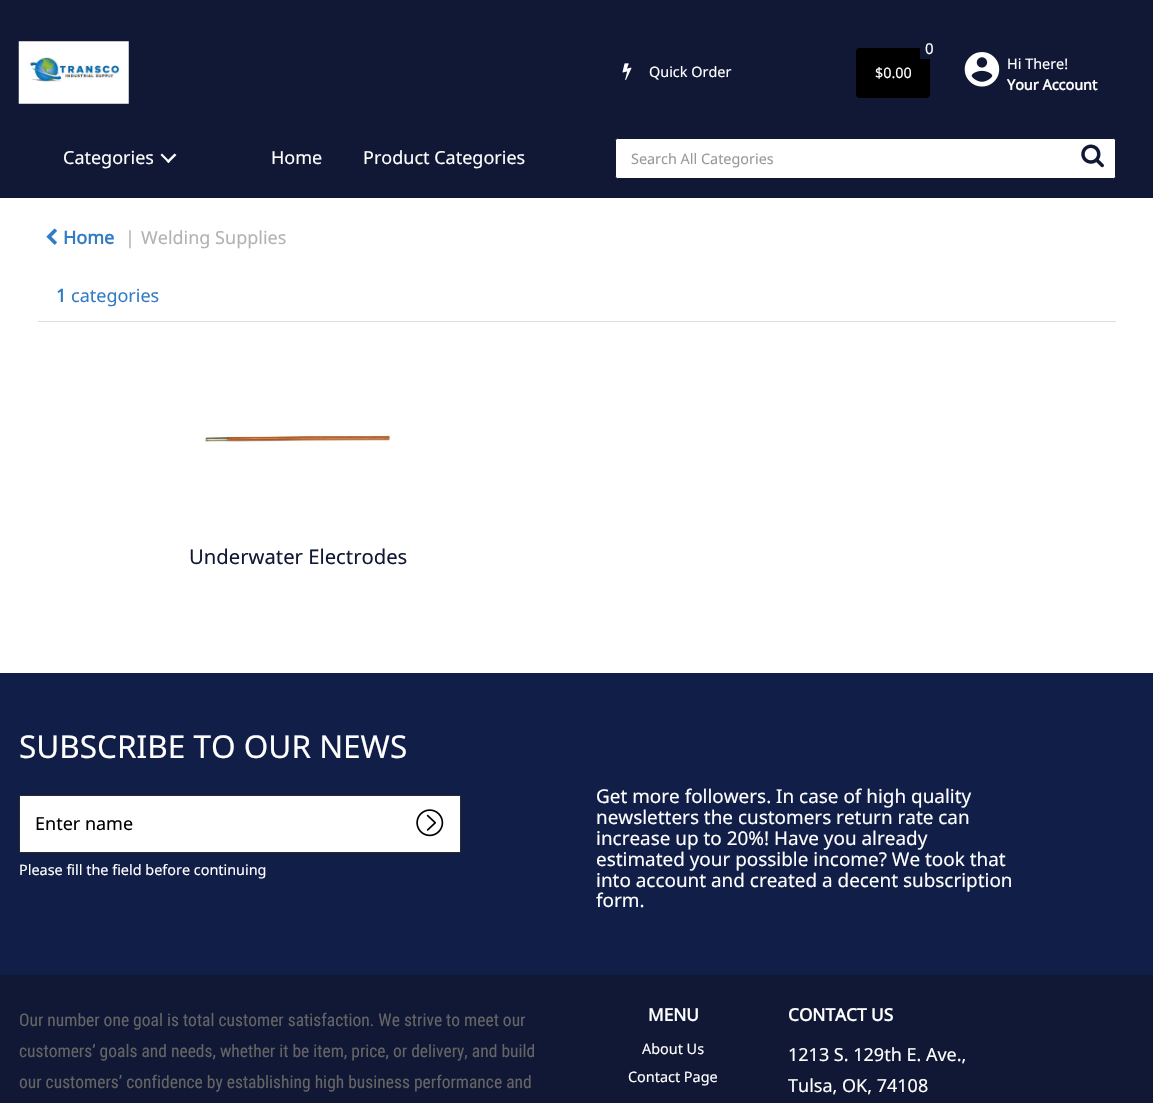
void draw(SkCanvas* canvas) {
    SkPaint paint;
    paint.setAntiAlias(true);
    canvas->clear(0xFFFFFFFF);
    paint.setColor(0xFF111835);
    canvas->drawRect(SkRect::MakeXYWH(0, 0, 1153, 198), paint);
    canvas->drawImageRect(SkImages::DeferredFromEncodedData(SkData::MakeFromFileName("img1.png")), SkRect::MakeXYWH(18, 41, 111, 63), SkSamplingOptions());
    canvas->drawImageRect(SkImages::DeferredFromEncodedData(SkData::MakeFromFileName("img2.png")), SkRect::MakeXYWH(622, 63, 10, 17), SkSamplingOptions());
    SkFont font1(fontMgr->matchFamilyStyle("Noto Sans", SkFontStyle::Normal()), 14.4f);
    font1.setSubpixel(true);
    paint.setColor(0xFFFFFFFF);
    canvas->drawString("Quick Order", 649, 77, font1, paint);
    paint.setColor(0xFF000000);
    canvas->drawRoundRect(SkRect::MakeXYWH(856, 48, 74, 50), 4, 4, paint);
    paint.setColor(0xFF111835);
    canvas->drawRect(SkRect::MakeXYWH(920, 48, 10, 11), paint);
    SkFont font2(fontMgr->matchFamilyStyle("Noto Sans", SkFontStyle::Normal()), 15);
    font2.setSubpixel(true);
    paint.setColor(0xFFFFFFFF);
    canvas->drawString("0", 925, 54, font2, paint);
    canvas->drawString("$0.00", 875, 78, font1, paint);
    canvas->drawImageRect(SkImages::DeferredFromEncodedData(SkData::MakeFromFileName("img3.png")), SkRect::MakeXYWH(964, 52, 36, 35), SkSamplingOptions());
    canvas->drawString("Hi There!", 1007, 69, font1, paint);
    SkFont font3(fontMgr->matchFamilyStyle("Noto Sans", SkFontStyle::Bold()), 14.4f);
    font3.setSubpixel(true);
    canvas->drawString("Your Account", 1007, 90, font3, paint);
    SkFont font4(fontMgr->matchFamilyStyle("Noto Sans", SkFontStyle::Normal()), 18);
    font4.setSubpixel(true);
    canvas->drawString("Categories", 63, 164, font4, paint);
    canvas->drawPath(SkPathBuilder().moveTo(162, 153.5f).lineTo(170, 161.5f).lineTo(168.5f, 163).lineTo(160.5f, 155).close().detach(), paint);
    canvas->drawPath(SkPathBuilder().moveTo(166.5f, 161.5f).lineTo(174.5f, 153.5f).lineTo(176.5f, 155).lineTo(168.5f, 163).close().detach(), paint);
    canvas->drawString("Home", 271, 164, font4, paint);
    canvas->drawString("Product Categories", 363, 164, font4, paint);
    canvas->drawRoundRect(SkRect::MakeXYWH(615.5f, 138.5f, 500, 40), 2, 2, paint);
    paint.setStyle(SkPaint::kStroke_Style);
    paint.setStrokeWidth(1);
    paint.setColor(0xFF111835);
    canvas->drawRoundRect(SkRect::MakeXYWH(615.5f, 138.5f, 500, 40), 2, 2, paint);
    paint.setStyle(SkPaint::kFill_Style);
    paint.setColor(0xFF999999);
    canvas->drawString("Search All Categories", 631, 164, font1, paint);
    canvas->drawImageRect(SkImages::DeferredFromEncodedData(SkData::MakeFromFileName("img4.png")), SkRect::MakeXYWH(1081, 144, 23, 24), SkSamplingOptions());
    canvas->drawImageRect(SkImages::DeferredFromEncodedData(SkData::MakeFromFileName("img5.png")), SkRect::MakeXYWH(46, 228, 11, 17), SkSamplingOptions());
    SkFont font5(fontMgr->matchFamilyStyle("Noto Sans", SkFontStyle::Bold()), 18);
    font5.setSubpixel(true);
    paint.setColor(0xFF317CC5);
    canvas->drawString("Home", 63, 244, font5, paint);
    paint.setColor(0xFFB2B2B2);
    canvas->drawString("|", 125, 244, font4, paint);
    canvas->drawString("Welding Supplies", 141, 244, font4, paint);
    paint.setColor(0xFF317CC5);
    canvas->drawString("1", 56, 302, font5, paint);
    canvas->drawString("categories", 71, 302, font4, paint);
    paint.setColor(0xFFDDDDDD);
    canvas->drawRect(SkRect::MakeXYWH(38, 321, 1078, 1), paint);
    canvas->drawImageRect(SkImages::DeferredFromEncodedData(SkData::MakeFromFileName("img6.png")), SkRect::MakeXYWH(204, 432, 187, 11), SkSamplingOptions());
    SkFont font6(fontMgr->matchFamilyStyle("Noto Sans", SkFontStyle::Normal()), 20.25f);
    font6.setSubpixel(true);
    paint.setColor(0xFF111835);
    canvas->drawString("Underwater Electrodes", 189, 564, font6, paint);
    paint.setColor(0xFF111E47);
    canvas->drawRect(SkRect::MakeXYWH(0, 673, 1153, 302), paint);
    SkFont font7(fontMgr->matchFamilyStyle("Noto Sans", SkFontStyle::Normal()), 31.5f);
    font7.setSubpixel(true);
    paint.setColor(0xFFFFFFFF);
    canvas->drawString("SUBSCRIBE TO OUR NEWS", 19, 758, font7, paint);
    canvas->drawRect(SkRect::MakeXYWH(19.5f, 795.5f, 441, 57), paint);
    paint.setStyle(SkPaint::kStroke_Style);
    paint.setColor(0xFF292C2E);
    canvas->drawRect(SkRect::MakeXYWH(19.5f, 795.5f, 441, 57), paint);
    paint.setStyle(SkPaint::kFill_Style);
    paint.setColor(0xFF000000);
    canvas->drawString("Enter name", 35, 830, font4, paint);
    canvas->drawImageRect(SkImages::DeferredFromEncodedData(SkData::MakeFromFileName("img7.png")), SkRect::MakeXYWH(416, 809, 28, 28), SkSamplingOptions());
    paint.setColor(0xFFFFFFFF);
    canvas->drawString("Please fill the field before continuing", 19, 875, font1, paint);
    SkFont font8(fontMgr->matchFamilyStyle("Noto Sans", SkFontStyle::Normal()), 18.9f);
    font8.setSubpixel(true);
    canvas->drawString("Get more followers. In case of high quality", 596, 803, font8, paint);
    canvas->drawString("newsletters the customers return rate can", 596, 824, font8, paint);
    canvas->drawString("increase up to 20%! Have you already", 596, 845, font8, paint);
    canvas->drawString("estimated your possible income? We took that", 596, 866, font8, paint);
    canvas->drawString("into account and created a decent subscription", 596, 887, font8, paint);
    canvas->drawString("form.", 596, 907, font8, paint);
    paint.setColor(0xFF111835);
    canvas->drawRect(SkRect::MakeXYWH(0, 975, 1153, 128), paint);
    SkFont font9(fontMgr->matchFamilyStyle("Roboto Condensed", SkFontStyle::Normal()), 17.5f);
    font9.setSubpixel(true);
    paint.setColor(0xFF656565);
    canvas->drawString("Our number one goal is total customer satisfaction. We strive to meet our", 19, 1026, font9, paint);
    canvas->drawString("customers’ goals and needs, whether it be item, price, or delivery, and build", 19, 1057, font9, paint);
    canvas->drawString("our customers’ confidence by establishing high business performance and", 19, 1088, font9, paint);
    SkFont font10(fontMgr->matchFamilyStyle("Noto Sans", SkFontStyle::Bold()), 17.25f);
    font10.setSubpixel(true);
    paint.setColor(0xFFFFFFFF);
    canvas->drawString("MENU", 648, 1021, font10, paint);
    canvas->drawString("About Us", 642, 1054, font1, paint);
    canvas->drawString("Contact Page", 628, 1082, font1, paint);
    canvas->drawString("CONTACT US", 788, 1021, font10, paint);
    canvas->drawString("1213 S. 129th E. Ave.,", 788, 1061, font4, paint);
    canvas->drawString("Tulsa, OK, 74108", 788, 1092, font4, paint);
}
